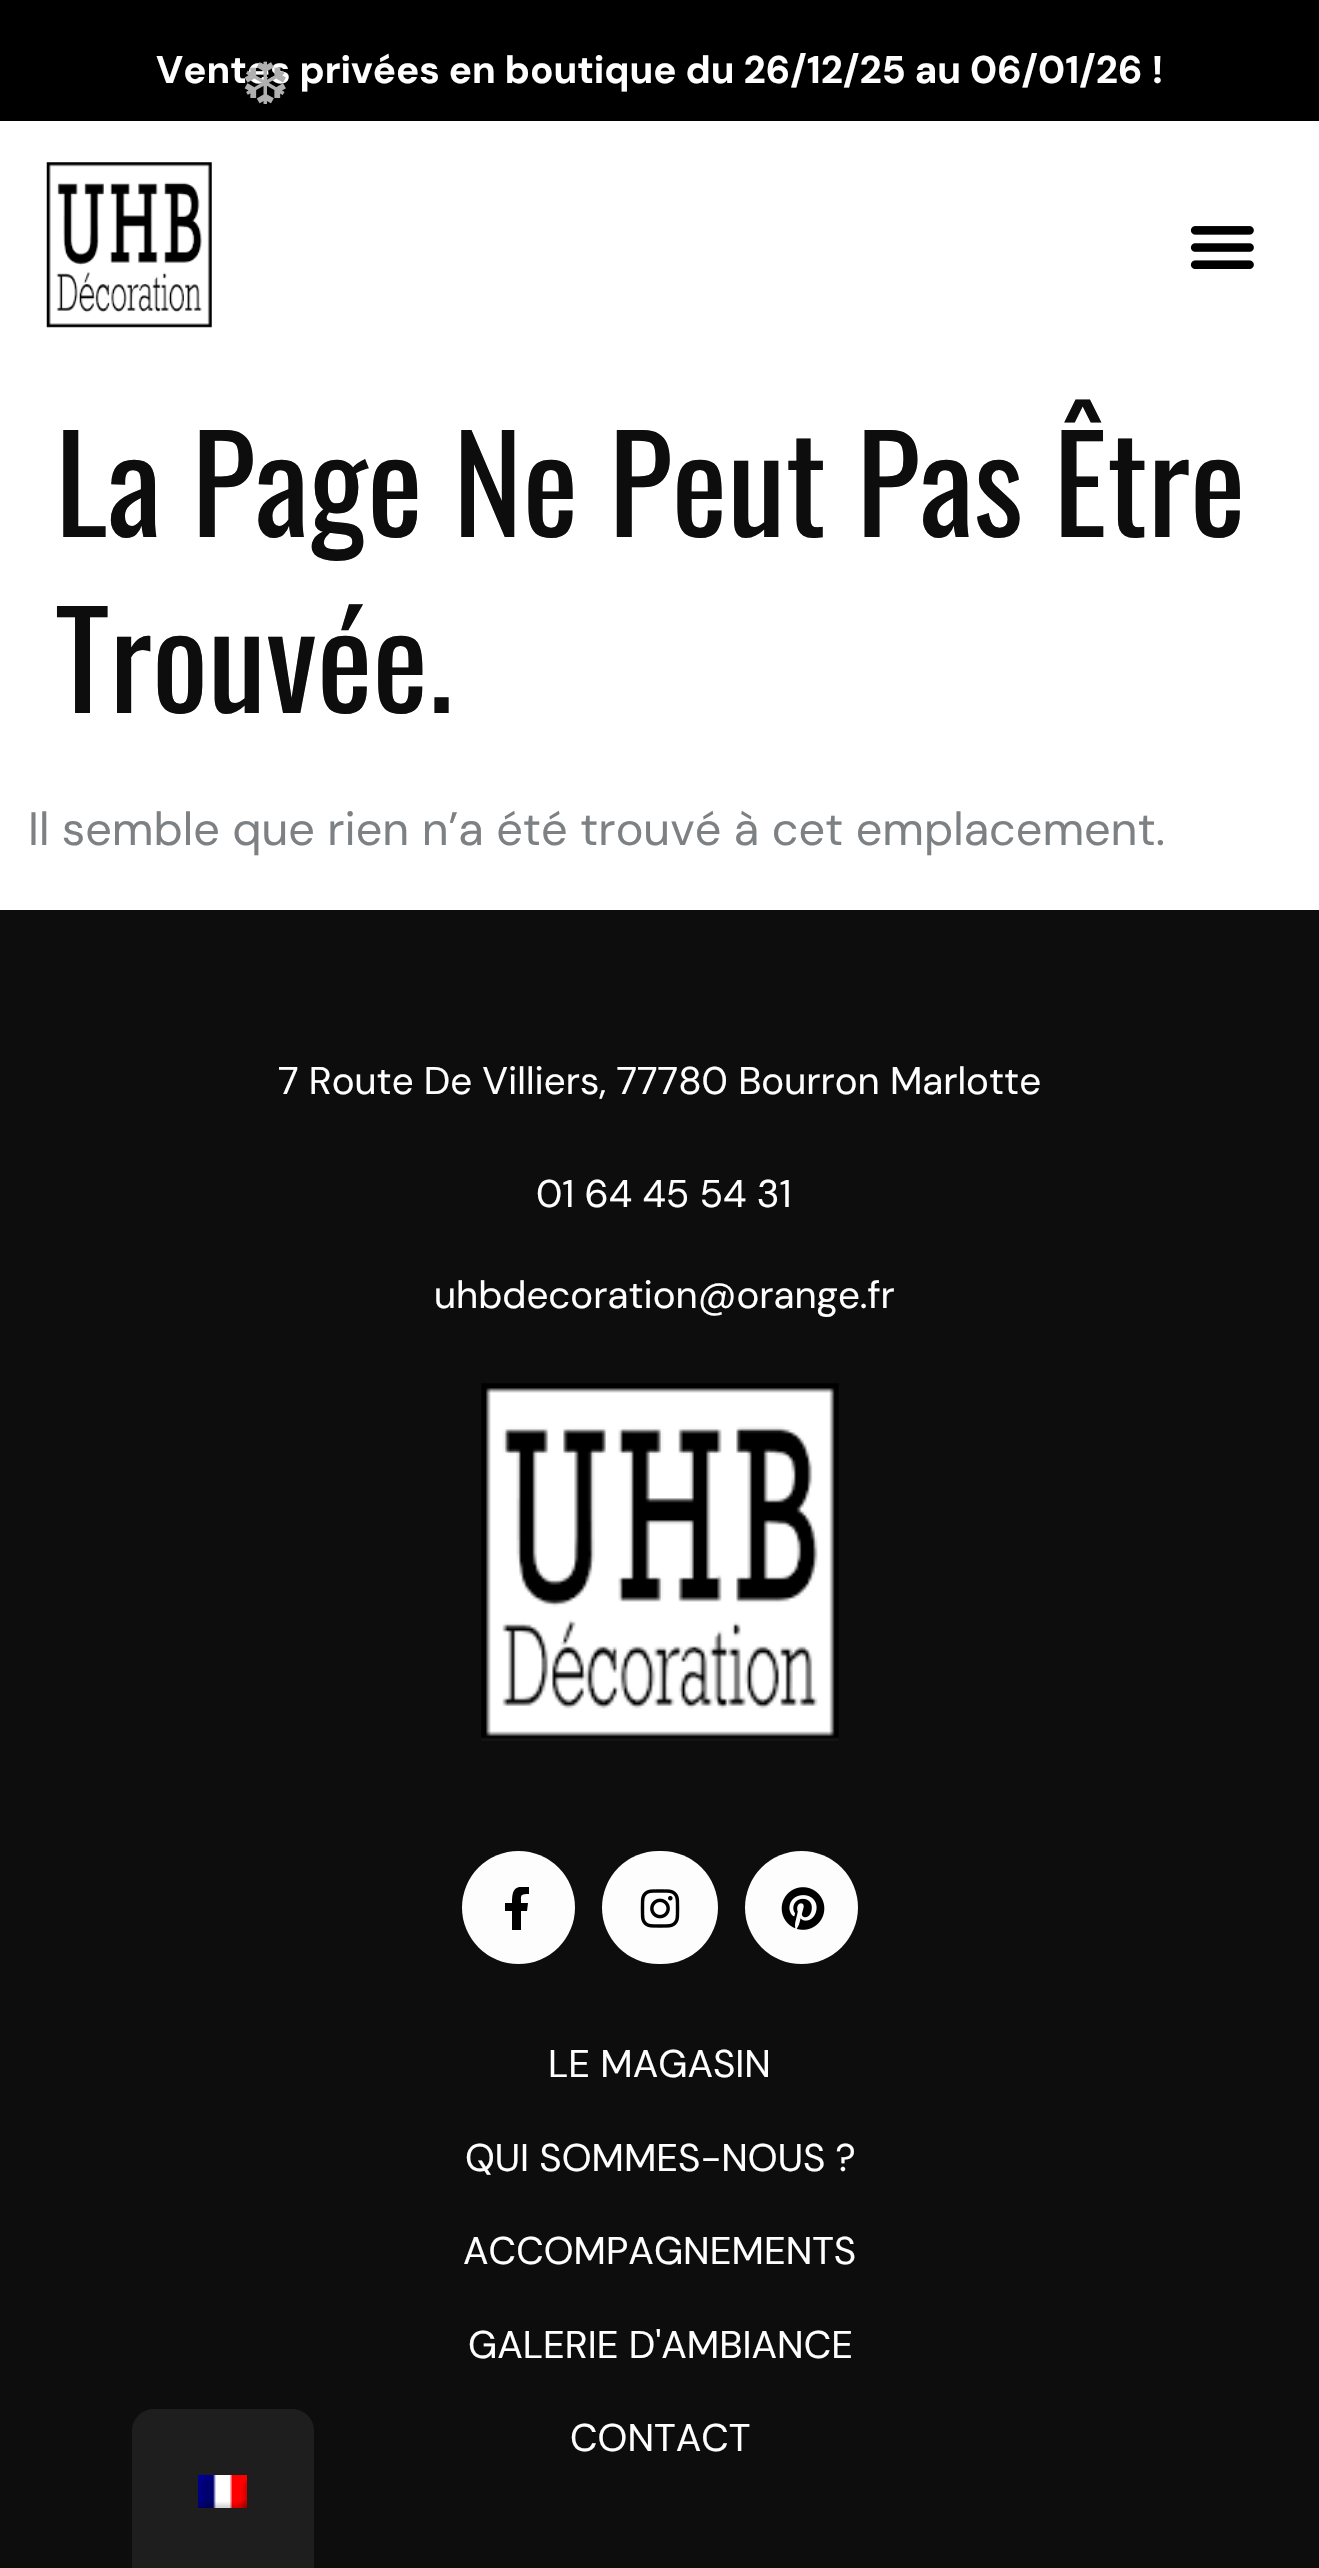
void draw(SkCanvas* canvas) {
    SkPaint paint;
    paint.setAntiAlias(true);
    canvas->clear(0xFFFFFFFF);
    paint.setColor(0xFF000000);
    canvas->drawRect(SkRect::MakeXYWH(0, 0, 1319, 121), paint);
    SkFont font1(fontMgr->matchFamilyStyle("DM Sans", SkFontStyle::Bold()), 38.5f);
    font1.setSubpixel(true);
    paint.setColor(0xFFFFFFFF);
    canvas->drawString("Ventes privées en boutique du 26/12/25 au 06/01/26 !", 156, 83, font1, paint);
    canvas->drawImageRect(SkImages::DeferredFromEncodedData(SkData::MakeFromFileName("img1.png")), SkRect::MakeXYWH(46, 162, 166, 166), SkSamplingOptions());
    canvas->drawImageRect(SkImages::DeferredFromEncodedData(SkData::MakeFromFileName("img2.png")), SkRect::MakeXYWH(1190, 226, 64, 43), SkSamplingOptions());
    SkFont font2(fontMgr->matchFamilyStyle("DejaVu Sans", SkFontStyle::Normal()), 58);
    font2.setSubpixel(true);
    paint.setColor(0xFFB0B0B0);
    canvas->drawString("❆", 241, 104, font2, paint);
    SkFont font3(fontMgr->matchFamilyStyle("Oswald", SkFontStyle::Normal()), 132);
    font3.setSubpixel(true);
    paint.setColor(0xFF0D0D0D);
    canvas->drawString("La Page Ne Peut Pas Être", 55, 537, font3, paint);
    canvas->drawString("Trouvée.", 55, 713, font3, paint);
    SkFont font4(fontMgr->matchFamilyStyle("DM Sans", SkFontStyle::Normal()), 46.75f);
    font4.setSubpixel(true);
    paint.setColor(0xFF7D8184);
    canvas->drawString("Il semble que rien n’a été trouvé à cet emplacement.", 28, 845, font4, paint);
    paint.setColor(0xFF0D0D0D);
    canvas->drawRect(SkRect::MakeXYWH(0, 910, 1319, 1658), paint);
    SkFont font5(fontMgr->matchFamilyStyle("DM Sans", SkFontStyle::Normal()), 38.5f);
    font5.setSubpixel(true);
    paint.setColor(0xFFFFFFFF);
    canvas->drawString("7 Route De Villiers, 77780 Bourron Marlotte", 278, 1094, font5, paint);
    canvas->drawString("01 64 45 54 31", 536, 1207, font5, paint);
    canvas->drawString("uhbdecoration@orange.fr", 434, 1308, font5, paint);
    canvas->drawImageRect(SkImages::DeferredFromEncodedData(SkData::MakeFromFileName("img3.png")), SkRect::MakeXYWH(481, 1383, 358, 358), SkSamplingOptions());
    paint.setColor(0xFFFDFDFD);
    canvas->drawCircle(518.5f, 1907.5f, 56.5f, paint);
    canvas->save();
    canvas->clipRect(SkRect::MakeXYWH(495, 1887, 44, 44));
    paint.setColor(0xFF000000);
    canvas->drawPath(SkPathBuilder().moveTo(527, 1911).lineTo(528, 1903).lineTo(521, 1903).cubicTo(521, 1895, 520, 1894, 529, 1894).lineTo(529, 1887).cubicTo(514, 1885, 512, 1890, 512, 1903).lineTo(505, 1903).lineTo(505, 1911).lineTo(512, 1911).lineTo(512, 1930).lineTo(521, 1930).lineTo(521, 1911).close().detach(), paint);
    canvas->restore();
    paint.setColor(0xFFFDFDFD);
    canvas->drawRoundRect(SkRect::MakeXYWH(602, 1851, 116, 113), 56.5f, 56.5f, paint);
    canvas->drawImageRect(SkImages::DeferredFromEncodedData(SkData::MakeFromFileName("img4.png")), SkRect::MakeXYWH(640, 1889, 40, 39), SkSamplingOptions());
    canvas->drawCircle(801.5f, 1907.5f, 56.5f, paint);
    canvas->drawImageRect(SkImages::DeferredFromEncodedData(SkData::MakeFromFileName("img5.png")), SkRect::MakeXYWH(781, 1887, 44, 43), SkSamplingOptions());
    paint.setColor(0xFFFFFFFF);
    canvas->drawString("LE MAGASIN", 548, 2077, font5, paint);
    canvas->drawString("QUI SOMMES-NOUS ?", 465, 2171, font5, paint);
    canvas->drawString("ACCOMPAGNEMENTS", 463, 2264, font5, paint);
    canvas->drawString("GALERIE D'AMBIANCE", 468, 2358, font5, paint);
    canvas->drawString("CONTACT", 570, 2451, font5, paint);
    paint.setColor(0xFF1E1E1E);
    canvas->drawPath(SkPathBuilder().moveTo(154, 2409).lineTo(292, 2409).cubicTo(304, 2409, 314, 2419, 314, 2431).lineTo(314, 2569).lineTo(132, 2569).lineTo(132, 2431).cubicTo(132, 2419, 142, 2409, 154, 2409).close().detach(), paint);
    canvas->drawImageRect(SkImages::DeferredFromEncodedData(SkData::MakeFromFileName("img6.png")), SkRect::MakeXYWH(198, 2475, 49, 33), SkSamplingOptions());
}
